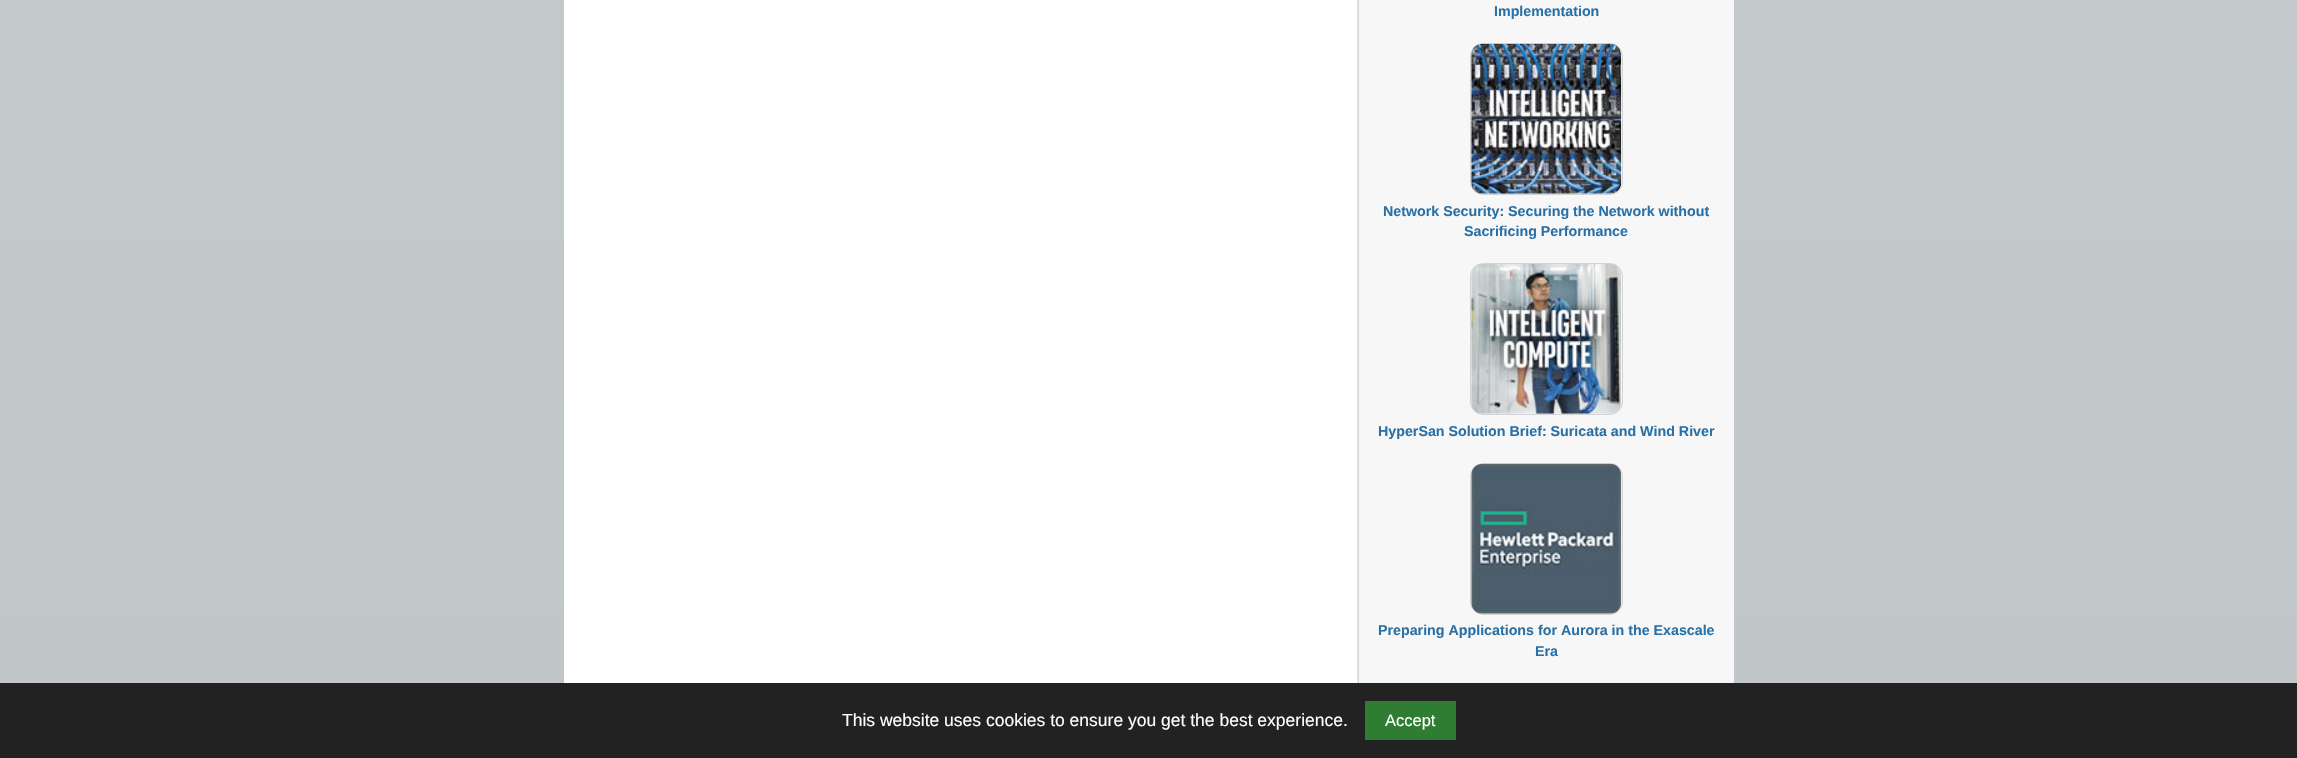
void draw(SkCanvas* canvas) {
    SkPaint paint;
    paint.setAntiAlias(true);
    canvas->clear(0xFFFFFFFF);
    {
        const SkColor colors[] = {0xFFD1D6D8, 0xFFBDC4C6};
        const float stops[] = {0, 1};
        const SkPoint ends[] = {{1149, -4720}, {1149, 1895}};
        paint.setShader(SkGradientShader::MakeLinear(ends, colors, stops, 2, SkTileMode::kClamp));
        paint.setAlpha(255);
    }
    canvas->drawRect(SkRect::MakeXYWH(0, 0, 2297, 683), paint);
    paint.setShader(nullptr);
    paint.setColor(0xFFFFFFFF);
    canvas->drawRect(SkRect::MakeXYWH(564, 0, 794, 683), paint);
    canvas->drawImageRect(SkImages::DeferredFromEncodedData(SkData::MakeFromFileName("img1.png")), SkRect::MakeXYWH(1357, 0, 2, 683), SkSamplingOptions());
    paint.setColor(0xFFF7F7F7);
    canvas->drawRect(SkRect::MakeXYWH(1359, 0, 375, 683), paint);
    SkFont font1(fontMgr->matchFamilyStyle("Liberation Sans", SkFontStyle::Bold()), 14.25f);
    font1.setSubpixel(true);
    paint.setColor(0xFF2970A6);
    canvas->drawString("Implementation", 1494, 16, font1, paint);
    paint.setStyle(SkPaint::kStroke_Style);
    paint.setStrokeWidth(1);
    paint.setColor(0xFFD3D3D3);
    canvas->drawRoundRect(SkRect::MakeXYWH(1470.5f, 43.5f, 152, 151), 12.5f, 12.5f, paint);
    canvas->drawImageRect(SkImages::DeferredFromEncodedData(SkData::MakeFromFileName("img2.png")), SkRect::MakeXYWH(1471, 43, 151, 151), SkSamplingOptions());
    paint.setStyle(SkPaint::kFill_Style);
    paint.setColor(0xFF2970A6);
    canvas->drawString("Network Security: Securing the Network without", 1383, 216, font1, paint);
    canvas->drawString("Sacrificing Performance", 1464, 236, font1, paint);
    paint.setStyle(SkPaint::kStroke_Style);
    paint.setColor(0xFFD3D3D3);
    canvas->drawRoundRect(SkRect::MakeXYWH(1470.5f, 263.5f, 152, 151), 12.5f, 12.5f, paint);
    canvas->drawImageRect(SkImages::DeferredFromEncodedData(SkData::MakeFromFileName("img3.png")), SkRect::MakeXYWH(1471, 264, 150, 150), SkSamplingOptions());
    paint.setStyle(SkPaint::kFill_Style);
    paint.setColor(0xFF2970A6);
    canvas->drawString("HyperSan Solution Brief: Suricata and Wind River", 1378, 436, font1, paint);
    paint.setStyle(SkPaint::kStroke_Style);
    paint.setColor(0xFFD3D3D3);
    canvas->drawRoundRect(SkRect::MakeXYWH(1470.5f, 463.5f, 152, 151), 12.5f, 12.5f, paint);
    canvas->drawImageRect(SkImages::DeferredFromEncodedData(SkData::MakeFromFileName("img4.png")), SkRect::MakeXYWH(1471, 463, 151, 151), SkSamplingOptions());
    paint.setStyle(SkPaint::kFill_Style);
    paint.setColor(0xFF2970A6);
    canvas->drawString("Preparing Applications for Aurora in the Exascale", 1378, 635, font1, paint);
    canvas->drawString("Era", 1535, 656, font1, paint);
    paint.setColor(0xFF222222);
    canvas->drawRect(SkRect::MakeXYWH(0, 683, 2297, 75), paint);
    SkFont font2(fontMgr->matchFamilyStyle("Liberation Sans", SkFontStyle::Normal()), 17.5f);
    font2.setSubpixel(true);
    paint.setColor(0xFFFFFFFF);
    canvas->drawString("This website uses cookies to ensure you get the best experience.", 842, 726, font2, paint);
    paint.setColor(0xFF2E7D32);
    canvas->drawRect(SkRect::MakeXYWH(1365, 701, 91, 39), paint);
    SkFont font3(fontMgr->matchFamilyStyle("Liberation Sans", SkFontStyle::Normal()), 16.5f);
    font3.setSubpixel(true);
    paint.setColor(0xFFFFFFFF);
    canvas->drawString("Accept", 1385, 726, font3, paint);
}
